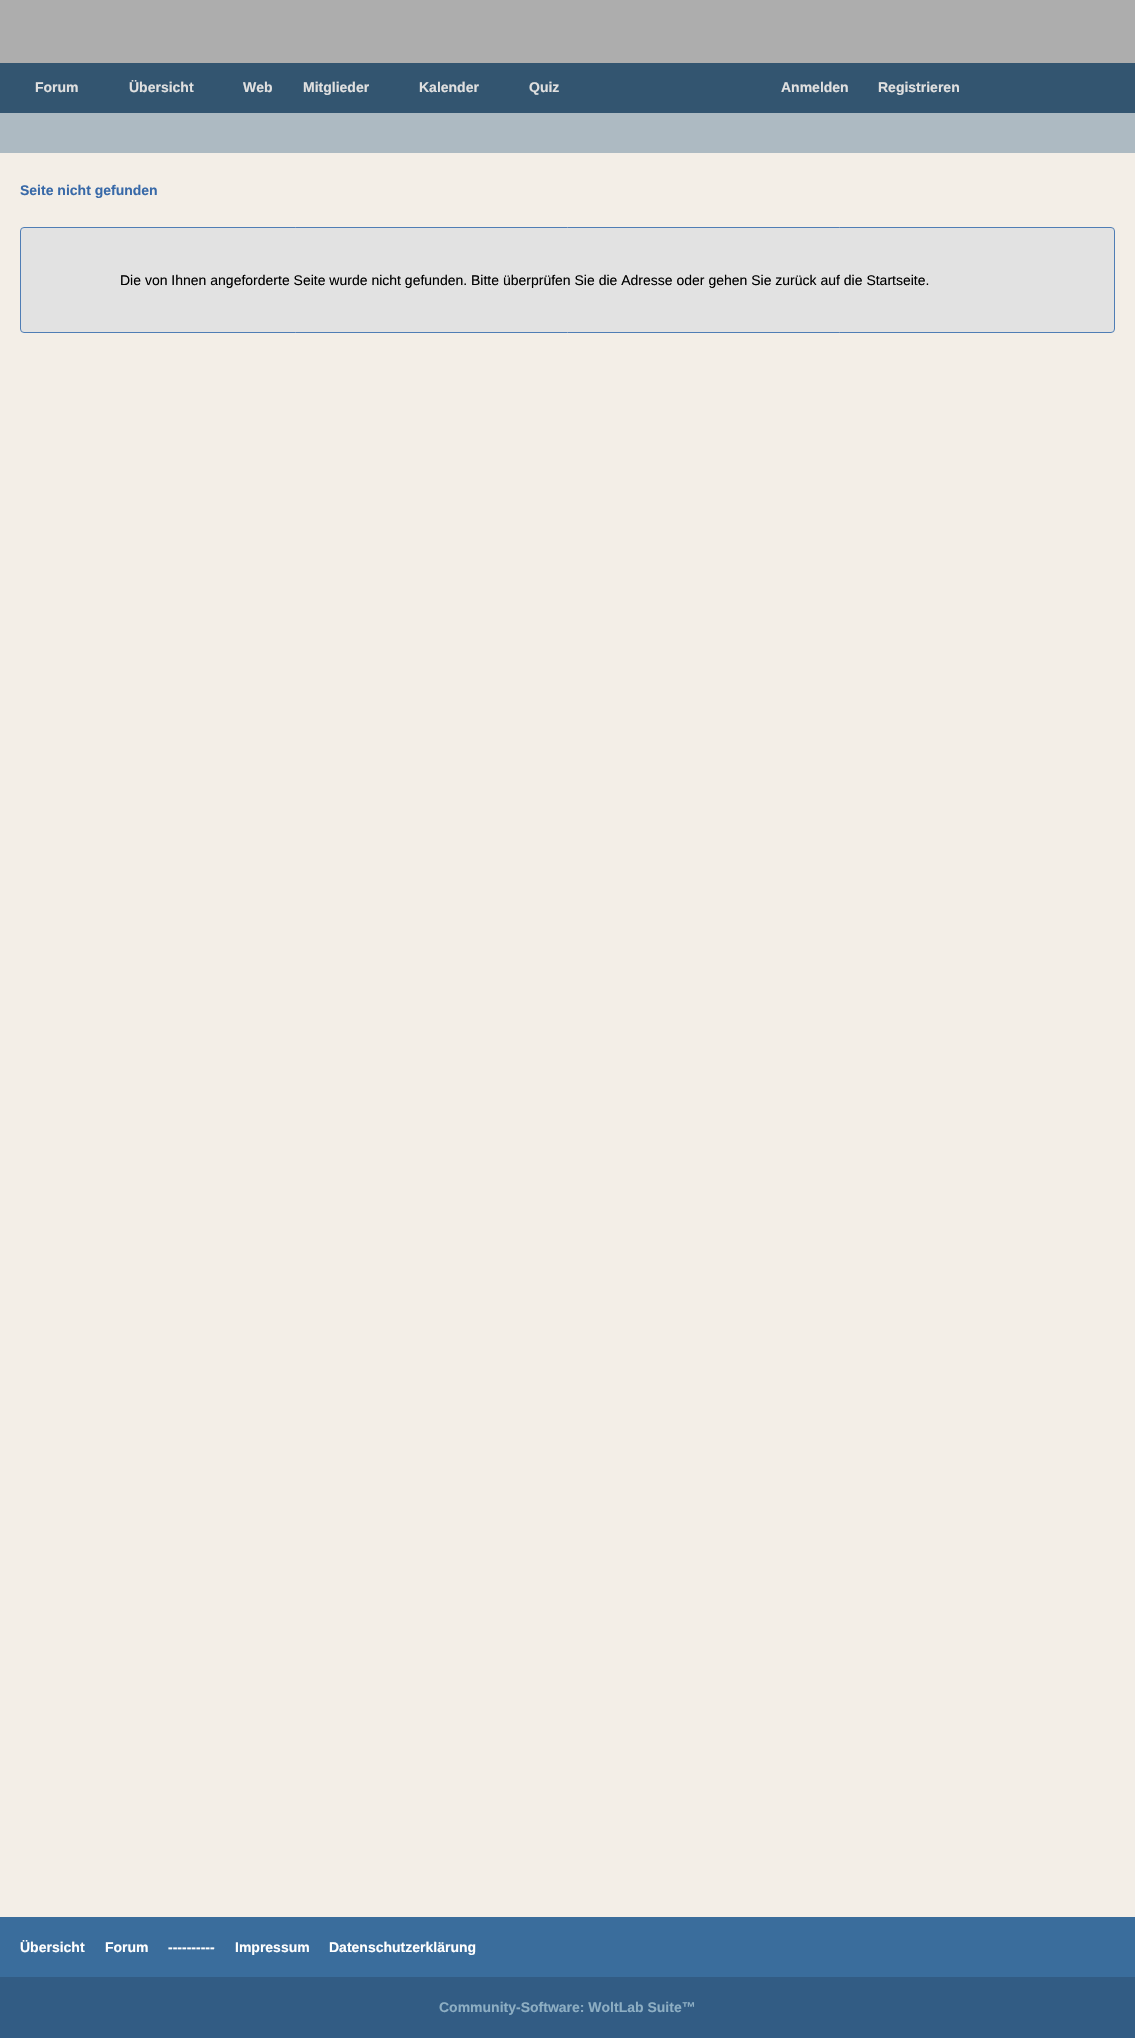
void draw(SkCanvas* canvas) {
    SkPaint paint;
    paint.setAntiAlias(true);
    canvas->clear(0xFFF3EEE7);
    paint.setColor(0xFFADADAD);
    canvas->drawRect(SkRect::MakeXYWH(0, 0, 1135, 63), paint);
    paint.setColor(0xFF335570);
    canvas->drawRect(SkRect::MakeXYWH(0, 63, 1135, 50), paint);
    SkFont font1(fontMgr->matchFamilyStyle("Liberation Sans", SkFontStyle::Bold()), 14);
    font1.setSubpixel(true);
    paint.setColor(0xFFE0E0E0);
    canvas->drawString("Forum", 35, 92, font1, paint);
    canvas->drawString("Übersicht", 129, 92, font1, paint);
    canvas->drawString("Web", 243, 92, font1, paint);
    canvas->drawString("Mitglieder", 303, 92, font1, paint);
    canvas->drawString("Kalender", 419, 92, font1, paint);
    canvas->drawString("Quiz", 529, 92, font1, paint);
    canvas->drawString("Anmelden", 781, 92, font1, paint);
    canvas->drawString("Registrieren", 878, 92, font1, paint);
    paint.setColor(0xFFADBAC2);
    canvas->drawRect(SkRect::MakeXYWH(0, 113, 1135, 40), paint);
    paint.setColor(0xFF3869A8);
    canvas->drawString("Seite nicht gefunden", 20, 195, font1, paint);
    paint.setColor(0xFFE2E2E2);
    canvas->drawRoundRect(SkRect::MakeXYWH(20.5f, 227.5f, 1094, 105), 3.5f, 3.5f, paint);
    paint.setStyle(SkPaint::kStroke_Style);
    paint.setStrokeWidth(1);
    paint.setColor(0xFF4F7DB5);
    canvas->drawRoundRect(SkRect::MakeXYWH(20.5f, 227.5f, 1094, 105), 3.5f, 3.5f, paint);
    SkFont font2(fontMgr->matchFamilyStyle("Liberation Sans", SkFontStyle::Normal()), 14);
    font2.setSubpixel(true);
    paint.setStyle(SkPaint::kFill_Style);
    paint.setColor(0xFF000000);
    canvas->drawString("Die von Ihnen angeforderte Seite wurde nicht gefunden. Bitte überprüfen Sie die Adresse oder gehen Sie zurück auf die Startseite.", 120, 285, font2, paint);
    paint.setColor(0xFF3A6D9C);
    canvas->drawRect(SkRect::MakeXYWH(0, 1917, 1135, 60), paint);
    paint.setColor(0xFFFFFFFF);
    canvas->drawString("Übersicht", 20, 1952, font1, paint);
    canvas->drawString("Forum", 105, 1952, font1, paint);
    canvas->drawString("----------", 168, 1952, font1, paint);
    canvas->drawString("Impressum", 235, 1952, font1, paint);
    canvas->drawString("Datenschutzerklärung", 329, 1952, font1, paint);
    paint.setColor(0xFF325C84);
    canvas->drawRect(SkRect::MakeXYWH(0, 1977, 1135, 61), paint);
    paint.setColor(0xFF8DAEC3);
    canvas->drawString("Community-Software: WoltLab Suite™", 439, 2012, font1, paint);
}
